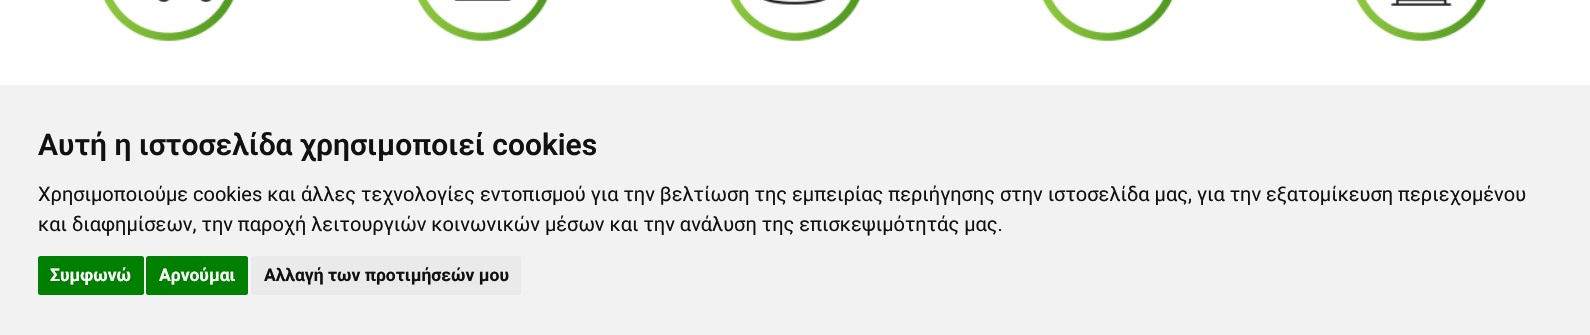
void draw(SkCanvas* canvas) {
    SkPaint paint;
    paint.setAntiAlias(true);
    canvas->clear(0xFFFFFFFF);
    canvas->drawImageRect(SkImages::DeferredFromEncodedData(SkData::MakeFromFileName("img1.png")), SkRect::MakeXYWH(103, 0, 131, 41), SkSamplingOptions());
    canvas->drawImageRect(SkImages::DeferredFromEncodedData(SkData::MakeFromFileName("img2.png")), SkRect::MakeXYWH(158, 0, 54, 2), SkSamplingOptions());
    canvas->drawImageRect(SkImages::DeferredFromEncodedData(SkData::MakeFromFileName("img3.png")), SkRect::MakeXYWH(417, 0, 131, 41), SkSamplingOptions());
    canvas->drawImageRect(SkImages::DeferredFromEncodedData(SkData::MakeFromFileName("img4.png")), SkRect::MakeXYWH(453, 0, 59, 1), SkSamplingOptions());
    canvas->drawImageRect(SkImages::DeferredFromEncodedData(SkData::MakeFromFileName("img5.png")), SkRect::MakeXYWH(730, 0, 131, 41), SkSamplingOptions());
    canvas->drawImageRect(SkImages::DeferredFromEncodedData(SkData::MakeFromFileName("img6.png")), SkRect::MakeXYWH(763, 0, 64, 5), SkSamplingOptions());
    canvas->drawImageRect(SkImages::DeferredFromEncodedData(SkData::MakeFromFileName("img3.png")), SkRect::MakeXYWH(1042, 0, 131, 41), SkSamplingOptions());
    canvas->drawImageRect(SkImages::DeferredFromEncodedData(SkData::MakeFromFileName("img7.png")), SkRect::MakeXYWH(1356, 0, 131, 41), SkSamplingOptions());
    canvas->drawImageRect(SkImages::DeferredFromEncodedData(SkData::MakeFromFileName("img8.png")), SkRect::MakeXYWH(1391, 0, 61, 6), SkSamplingOptions());
    paint.setColor(0xFFF2F2F2);
    canvas->drawRect(SkRect::MakeXYWH(0, 85, 1590, 250), paint);
    SkFont font1(fontMgr->matchFamilyStyle("Roboto", SkFontStyle(600, SkFontStyle::kNormal_Width, SkFontStyle::kUpright_Slant)), 30);
    font1.setSubpixel(true);
    paint.setColor(0xFF111111);
    canvas->drawString("Αυτή η ιστοσελίδα χρησιμοποιεί cookies", 38, 155, font1, paint);
    SkFont font2(fontMgr->matchFamilyStyle("Roboto", SkFontStyle::Normal()), 20);
    font2.setSubpixel(true);
    canvas->drawString("Χρησιμοποιούμε cookies και άλλες τεχνολογίες εντοπισμού για την βελτίωση της εμπειρίας περιήγησης στην ιστοσελίδα μας, για την εξατομίκευση περιεχομένου", 38, 201, font2, paint);
    canvas->drawString("και διαφημίσεων, την παροχή λειτουργιών κοινωνικών μέσων και την ανάλυση της επισκεψιμότητάς μας.", 38, 231, font2, paint);
    paint.setColor(0xFF008000);
    canvas->drawRoundRect(SkRect::MakeXYWH(38, 256, 106, 39), 2.5f, 2.5f, paint);
    SkFont font3(fontMgr->matchFamilyStyle("Roboto", SkFontStyle::Bold()), 17.5f);
    font3.setSubpixel(true);
    paint.setColor(0xFFFFFFFF);
    canvas->drawString("Συμφωνώ", 50, 281, font3, paint);
    paint.setColor(0xFF008000);
    canvas->drawRoundRect(SkRect::MakeXYWH(146, 256, 102, 39), 2.5f, 2.5f, paint);
    paint.setColor(0xFFFFFFFF);
    canvas->drawString("Αρνούμαι", 159, 281, font3, paint);
    paint.setColor(0xFFEAEAEA);
    canvas->drawRoundRect(SkRect::MakeXYWH(251, 256, 270, 39), 2.5f, 2.5f, paint);
    paint.setColor(0xFF111111);
    canvas->drawString("Αλλαγή των προτιμήσεών μου", 264, 281, font3, paint);
}
